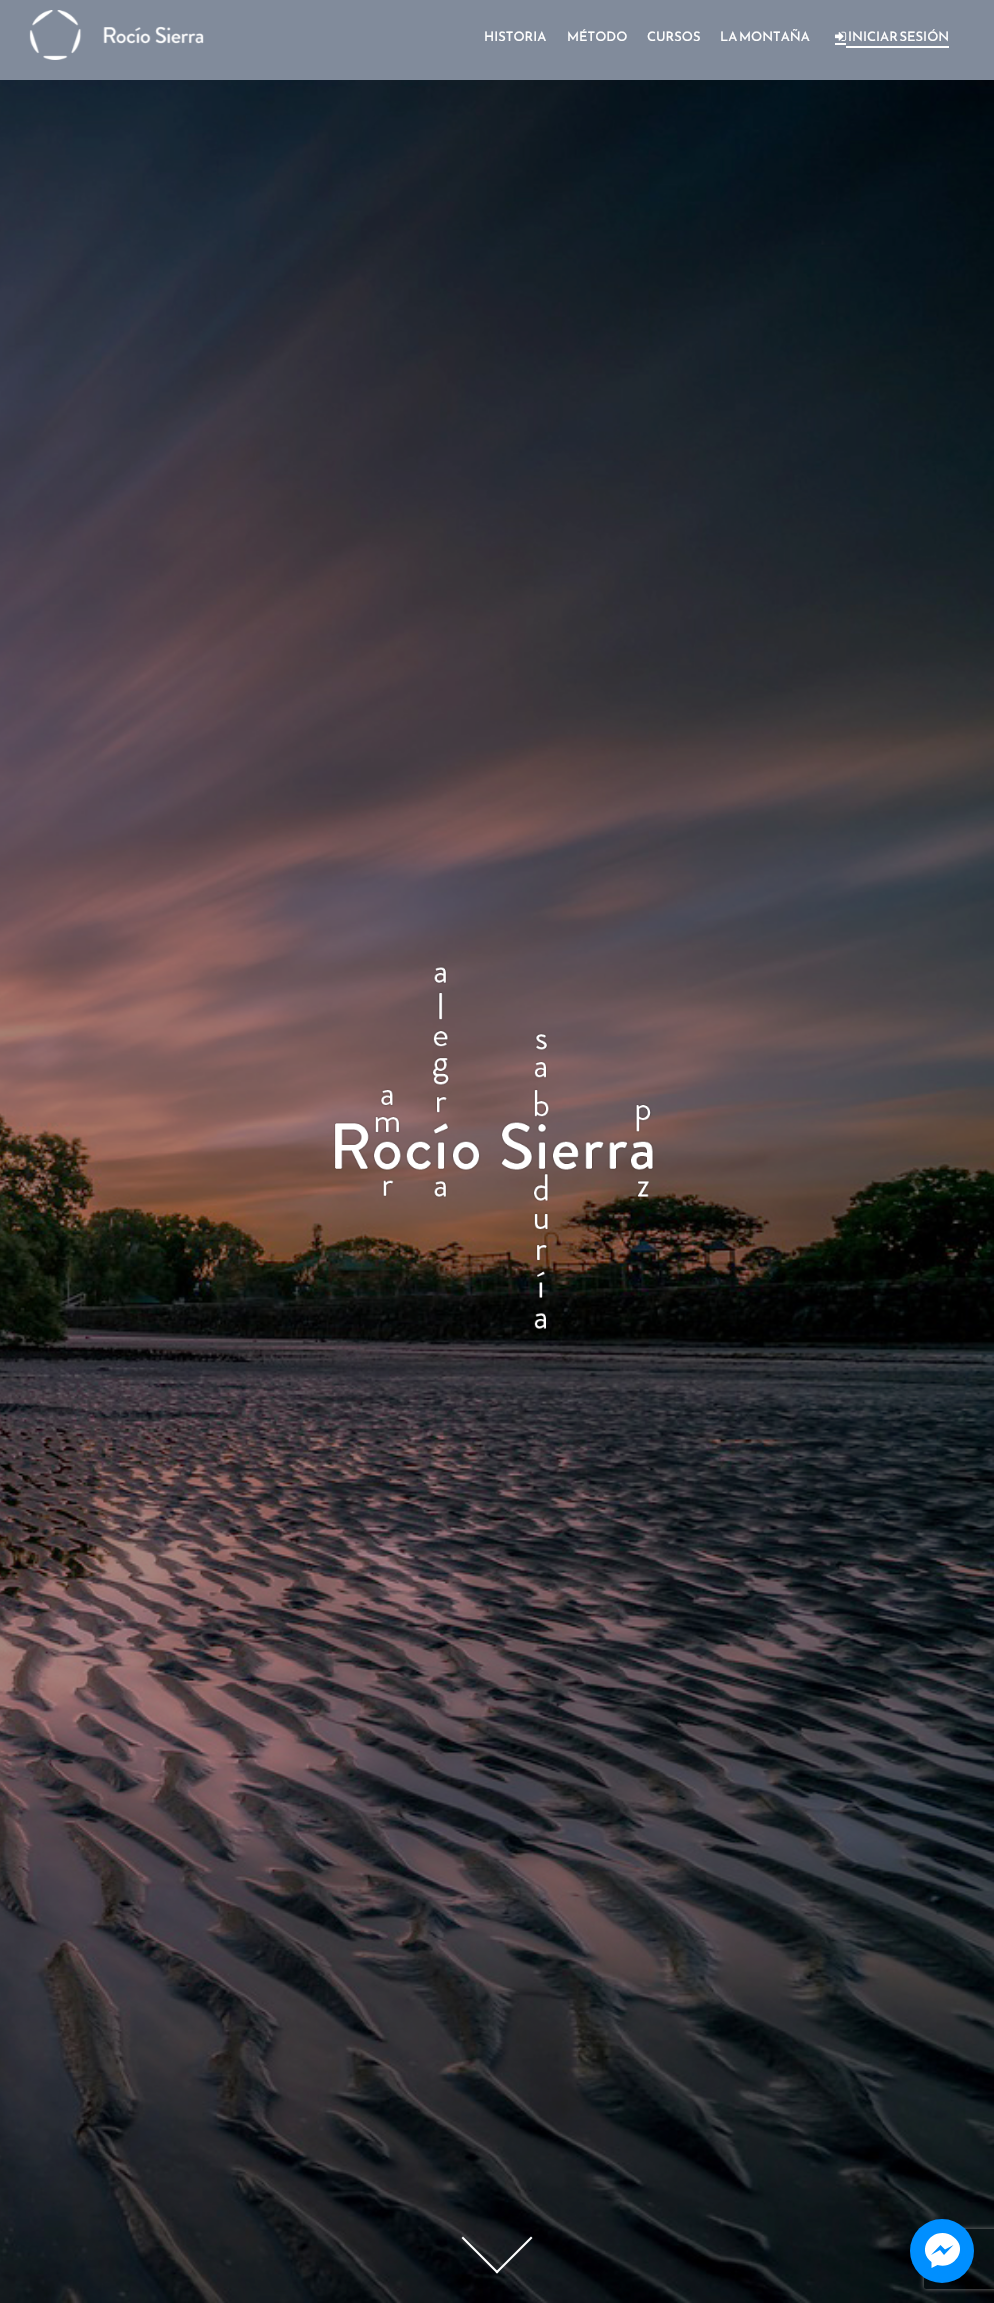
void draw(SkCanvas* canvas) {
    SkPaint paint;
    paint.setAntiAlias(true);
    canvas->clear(0xFFFFFFFF);
    paint.setColor(0xFF818B9B);
    canvas->drawRect(SkRect::MakeXYWH(0, 0, 994, 80), paint);
    canvas->drawImageRect(SkImages::DeferredFromEncodedData(SkData::MakeFromFileName("img1.png")), SkRect::MakeXYWH(29, 10, 175, 50), SkSamplingOptions());
    SkFont font1(fontMgr->matchFamilyStyle("Reem Kufi", SkFontStyle::Normal()), 13);
    font1.setSubpixel(true);
    paint.setColor(0xFFFFFFFF);
    canvas->drawString("HISTORIA", 484, 41, font1, paint);
    canvas->drawString("MÉTODO", 567, 41, font1, paint);
    canvas->drawString("CURSOS", 647, 41, font1, paint);
    canvas->drawString("LA MONTAÑA", 720, 41, font1, paint);
    canvas->drawRect(SkRect::MakeXYWH(835, 43, 11, 2), paint);
    canvas->drawRect(SkRect::MakeXYWH(846, 46, 103, 2), paint);
    canvas->drawImageRect(SkImages::DeferredFromEncodedData(SkData::MakeFromFileName("img2.png")), SkRect::MakeXYWH(835, 31, 12, 10), SkSamplingOptions());
    canvas->drawString("INICIAR SESIÓN", 848, 41, font1, paint);
    canvas->drawImageRect(SkImages::DeferredFromEncodedData(SkData::MakeFromFileName("img3.png")), SkRect::MakeXYWH(0, 80, 994, 2223), SkSamplingOptions());
    canvas->drawImageRect(SkImages::DeferredFromEncodedData(SkData::MakeFromFileName("img4.png")), SkRect::MakeXYWH(334, 966, 320, 363), SkSamplingOptions());
    canvas->drawPath(SkPathBuilder().moveTo(531, 2236.5f).lineTo(532.5f, 2238).lineTo(497, 2273.5f).lineTo(495.5f, 2272).close().detach(), paint);
    canvas->drawPath(SkPathBuilder().moveTo(463, 2236.5f).lineTo(498.5f, 2272).lineTo(497, 2273.5f).lineTo(461.5f, 2238).close().detach(), paint);
    paint.setColor(0x33000000);
    paint.setMaskFilter(SkMaskFilter::MakeBlur(kNormal_SkBlurStyle, 2.5f));
    canvas->drawRoundRect(SkRect::MakeXYWH(910, 2219, 64, 64), 32, 32, paint);
    paint.setMaskFilter(nullptr);
    canvas->save();
    canvas->clipPath(SkPathBuilder(SkPathFillType::kEvenOdd).moveTo(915, 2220).lineTo(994, 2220).lineTo(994, 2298).lineTo(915, 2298).close().moveTo(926, 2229).lineTo(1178, 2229).cubicTo(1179, 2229, 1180, 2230, 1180, 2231).lineTo(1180, 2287).cubicTo(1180, 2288, 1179, 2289, 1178, 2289).lineTo(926, 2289).cubicTo(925, 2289, 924, 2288, 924, 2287).lineTo(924, 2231).cubicTo(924, 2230, 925, 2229, 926, 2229).close().detach(), true);
    paint.setColor(0xFF808080);
    paint.setMaskFilter(SkMaskFilter::MakeBlur(kNormal_SkBlurStyle, 2.5f));
    canvas->drawRoundRect(SkRect::MakeXYWH(924, 2229, 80, 60), 2, 2, paint);
    paint.setMaskFilter(nullptr);
    canvas->restore();
    paint.setColor(0xFF008FFF);
    canvas->drawCircle(942, 2251, 32, paint);
    paint.setColor(0xFFFFFFFF);
    canvas->drawPath(SkPathBuilder().moveTo(942.5f, 2233).cubicTo(926.5f, 2233, 918.5f, 2252.5f, 931.5f, 2262).lineTo(931.5f, 2268).lineTo(937.5f, 2265).cubicTo(954.5f, 2270, 969, 2248.5f, 953.5f, 2237).cubicTo(950.5f, 2234.5f, 946.5f, 2233, 942.5f, 2233).close().moveTo(944, 2255).lineTo(940, 2250).lineTo(931, 2255).lineTo(940.5f, 2245).lineTo(945, 2249.5f).lineTo(953.5f, 2245).close().detach(), paint);
}
